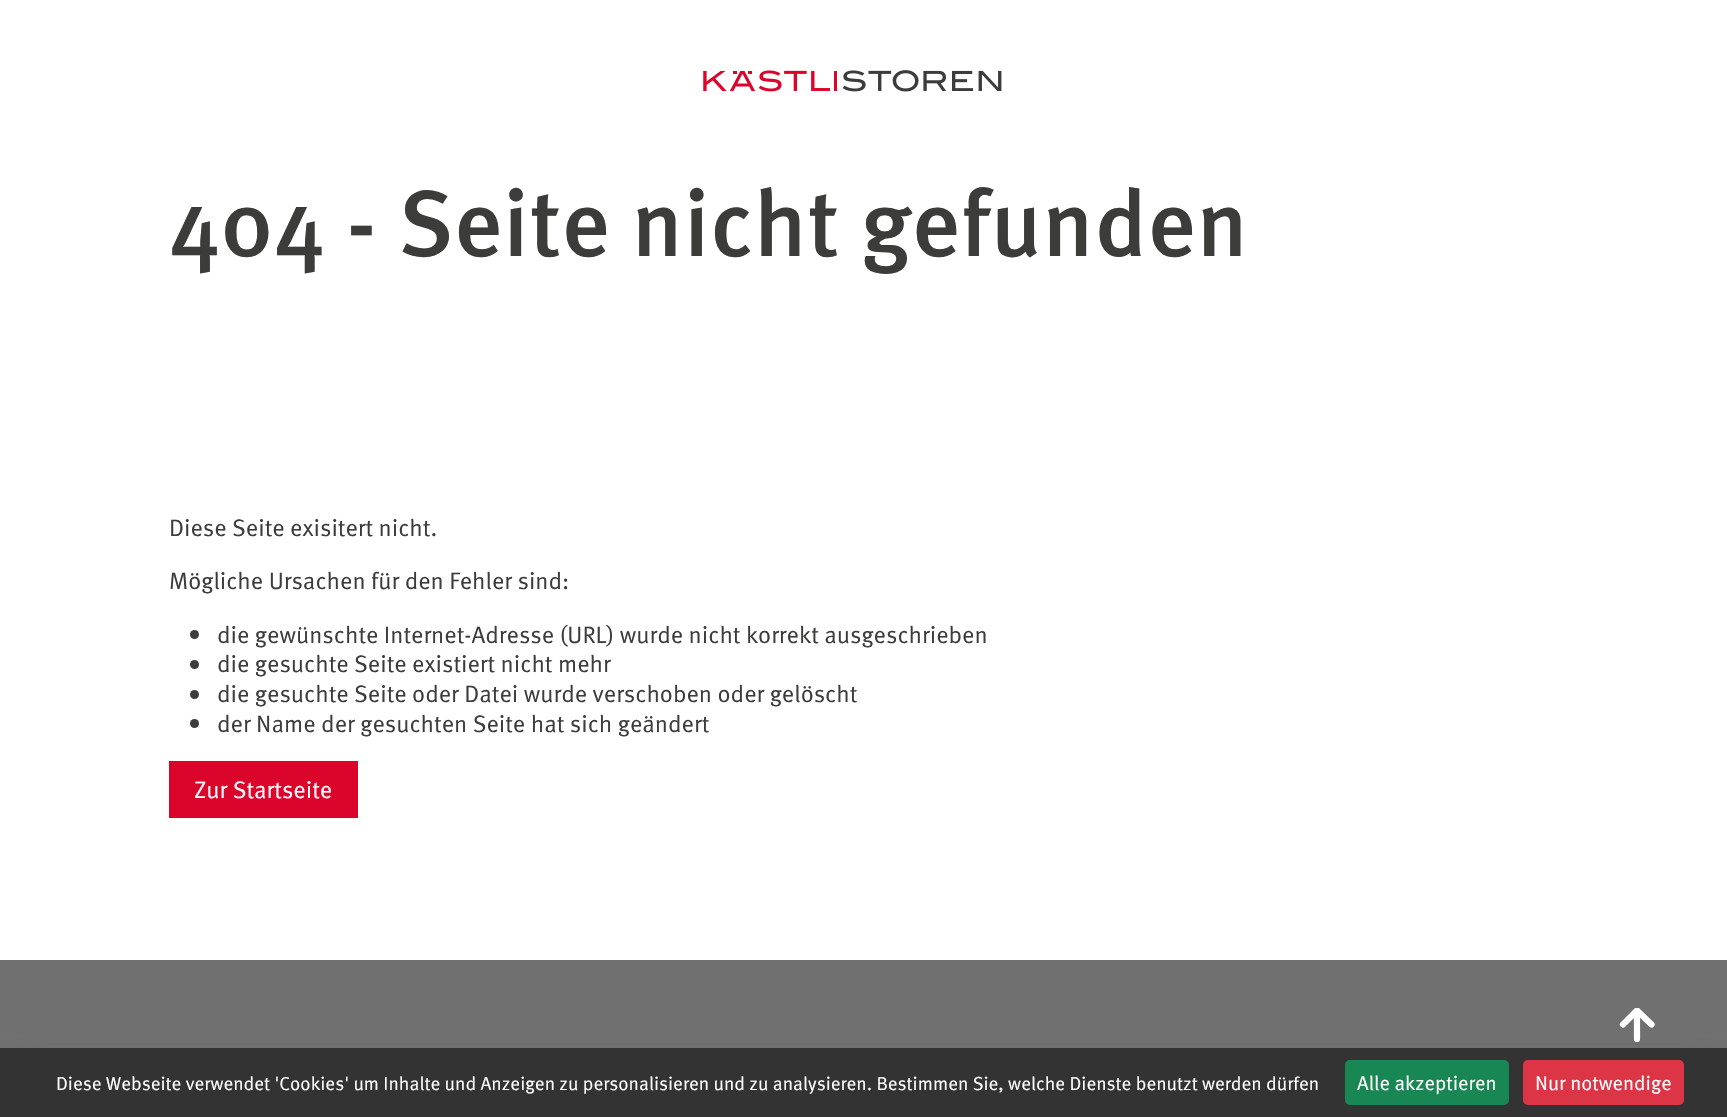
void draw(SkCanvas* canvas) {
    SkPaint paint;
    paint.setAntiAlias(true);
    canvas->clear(0xFFFFFFFF);
    canvas->drawImageRect(SkImages::DeferredFromEncodedData(SkData::MakeFromFileName("img1.png")), SkRect::MakeXYWH(703, 70, 299, 22), SkSamplingOptions());
    SkFont font1(fontMgr->matchFamilyStyle("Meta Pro", SkFontStyle(500, SkFontStyle::kNormal_Width, SkFontStyle::kUpright_Slant)), 93.75f);
    font1.setSubpixel(true);
    paint.setColor(0xFF3C3C3B);
    canvas->drawString("404 - Seite nicht gefunden", 169, 256, font1, paint);
    SkFont font2(fontMgr->matchFamilyStyle("Meta Pro", SkFontStyle::Normal()), 23.75f);
    font2.setSubpixel(true);
    canvas->drawString("Diese Seite exisitert nicht.", 169, 536, font2, paint);
    canvas->drawString("Mögliche Ursachen für den Fehler sind:", 169, 589, font2, paint);
    canvas->drawCircle(194.5f, 634.5f, 4.5f, paint);
    canvas->drawString("die gewünschte Internet-Adresse (URL) wurde nicht korrekt ausgeschrieben", 217, 643, font2, paint);
    canvas->drawCircle(194.5f, 664.5f, 4.5f, paint);
    canvas->drawString("die gesuchte Seite existiert nicht mehr", 217, 672, font2, paint);
    canvas->drawCircle(194.5f, 694.5f, 4.5f, paint);
    canvas->drawString("die gesuchte Seite oder Datei wurde verschoben oder gelöscht", 217, 702, font2, paint);
    canvas->drawCircle(194.5f, 723.5f, 4.5f, paint);
    canvas->drawString("der Name der gesuchten Seite hat sich geändert", 217, 732, font2, paint);
    paint.setColor(0xFFDB052C);
    canvas->drawRect(SkRect::MakeXYWH(169, 761, 189, 57), paint);
    paint.setColor(0xFFFFFFFF);
    canvas->drawString("Zur Startseite", 194, 798, font2, paint);
    paint.setColor(0xFF707070);
    canvas->drawRect(SkRect::MakeXYWH(0, 960, 1727, 88), paint);
    canvas->save();
    canvas->clipRect(SkRect::MakeXYWH(1619, 1008, 37, 35));
    paint.setStyle(SkPaint::kStroke_Style);
    paint.setStrokeWidth(6.2f);
    paint.setStrokeCap(SkPaint::kRound_Cap);
    paint.setStrokeJoin(SkPaint::kRound_Join);
    paint.setColor(0xFFFFFFFF);
    canvas->drawPath(SkPathBuilder().moveTo(1637, 1039).lineTo(1637, 1010.5f).moveTo(1623, 1024.5f).lineTo(1637, 1010.5f).lineTo(1651.5f, 1024.5f).detach(), paint);
    canvas->restore();
    paint.setStyle(SkPaint::kFill_Style);
    paint.setColor(0x4032325D);
    paint.setMaskFilter(SkMaskFilter::MakeBlur(kNormal_SkBlurStyle, 17));
    canvas->drawRect(SkRect::MakeXYWH(6, 1070, 1715, 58), paint);
    paint.setMaskFilter(nullptr);
    paint.setColor(0xFF333333);
    canvas->drawRect(SkRect::MakeXYWH(0, 1048, 1727, 69), paint);
    SkFont font3(fontMgr->matchFamilyStyle("Meta Pro", SkFontStyle::Normal()), 18.75f);
    font3.setSubpixel(true);
    paint.setColor(0xFFFFFFFF);
    canvas->drawString("Diese Webseite verwendet 'Cookies' um Inhalte und Anzeigen zu personalisieren und zu analysieren. Bestimmen Sie, welche Dienste benutzt werden dürfen", 56, 1090, font3, paint);
    paint.setColor(0xFF198754);
    canvas->drawRoundRect(SkRect::MakeXYWH(1345, 1060, 164, 45), 5, 5, paint);
    SkFont font4(fontMgr->matchFamilyStyle("Meta Pro", SkFontStyle::Normal()), 20);
    font4.setSubpixel(true);
    paint.setColor(0xFFFFFFFF);
    canvas->drawString("Alle akzeptieren", 1357, 1090, font4, paint);
    paint.setColor(0xFFDC3545);
    canvas->drawRoundRect(SkRect::MakeXYWH(1523, 1060, 161, 45), 5, 5, paint);
    paint.setColor(0xFFFFFFFF);
    canvas->drawString("Nur notwendige", 1535, 1090, font4, paint);
}
